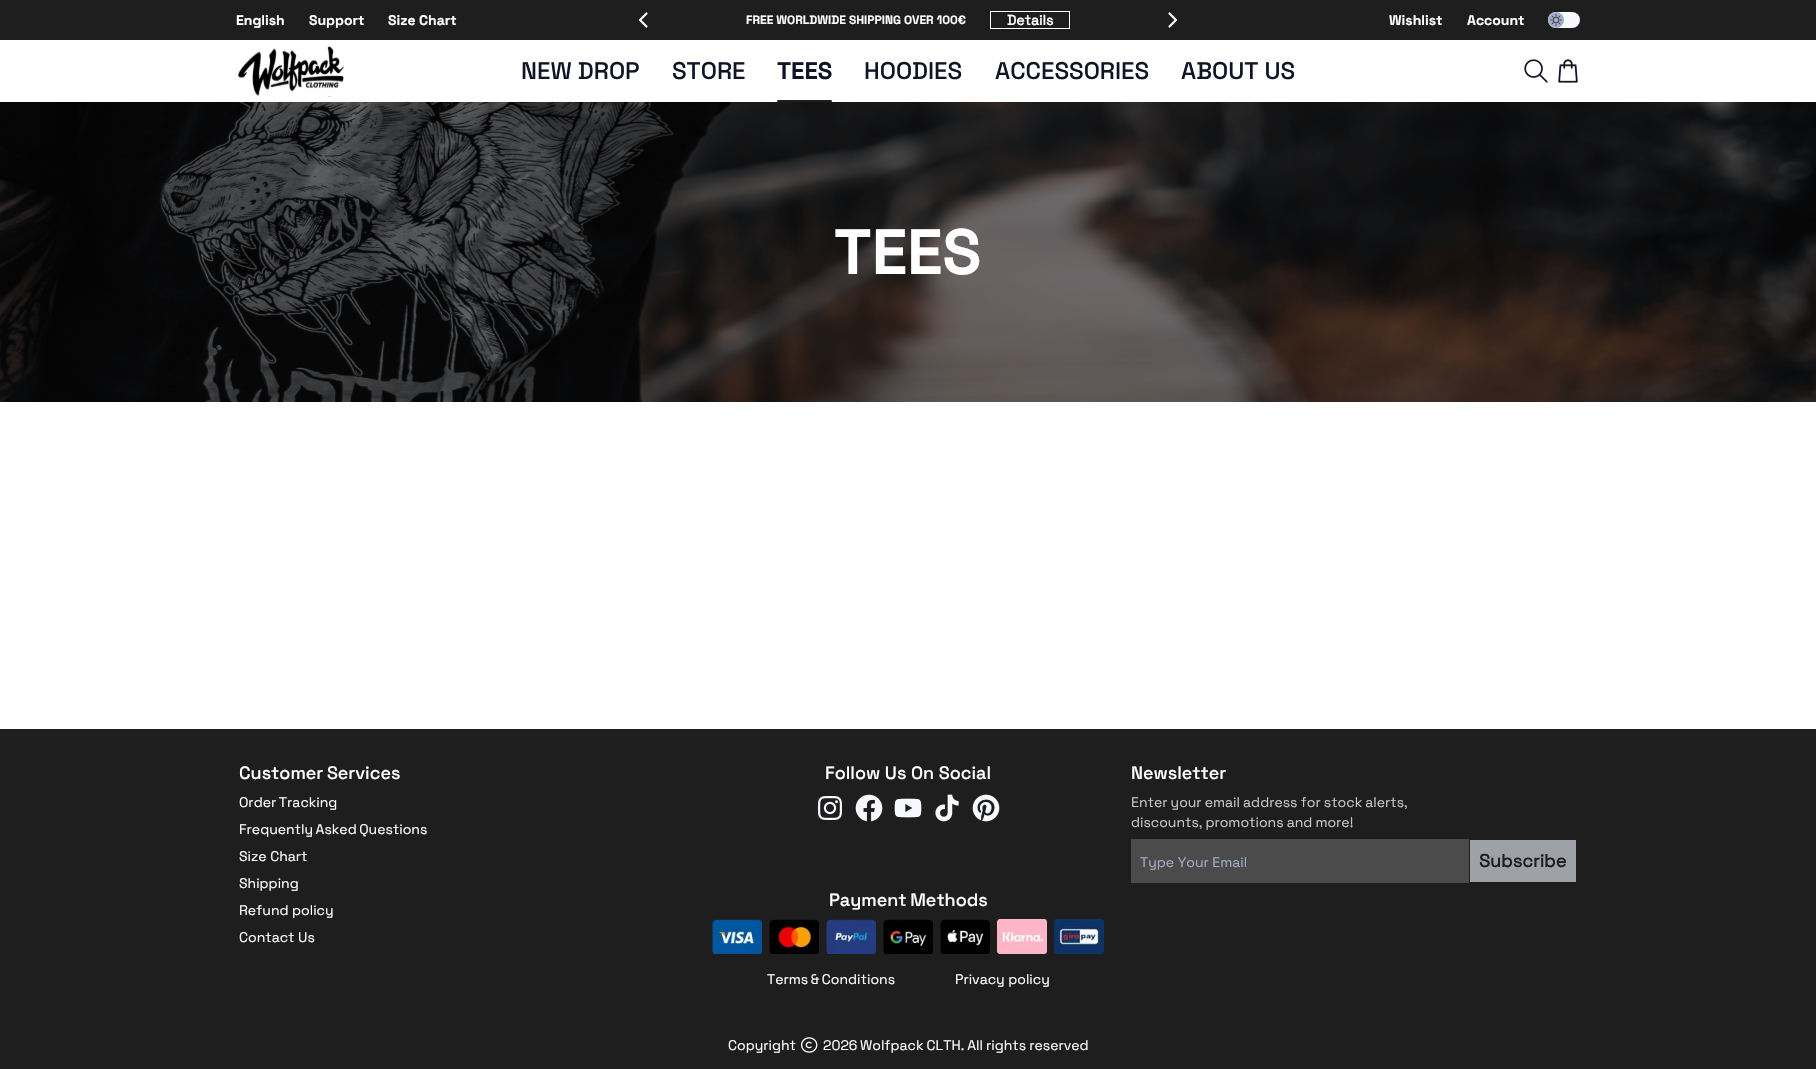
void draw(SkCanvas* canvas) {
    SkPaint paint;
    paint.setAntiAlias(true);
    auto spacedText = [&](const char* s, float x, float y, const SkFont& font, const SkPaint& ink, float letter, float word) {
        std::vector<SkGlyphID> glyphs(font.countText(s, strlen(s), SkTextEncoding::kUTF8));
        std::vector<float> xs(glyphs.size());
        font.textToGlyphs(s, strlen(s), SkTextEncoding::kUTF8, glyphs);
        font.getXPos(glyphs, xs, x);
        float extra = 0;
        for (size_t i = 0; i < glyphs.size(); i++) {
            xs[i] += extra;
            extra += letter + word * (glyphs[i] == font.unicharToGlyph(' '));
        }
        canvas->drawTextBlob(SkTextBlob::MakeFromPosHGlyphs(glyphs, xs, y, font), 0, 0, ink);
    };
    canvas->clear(0xFFFFFFFF);
    paint.setColor(0xFF1E1E1E);
    canvas->drawRect(SkRect::MakeXYWH(0, 0, 1816, 40), paint);
    SkFont font1(fontMgr->matchFamilyStyle("Space Grotesk", SkFontStyle::Bold()), 14);
    font1.setSubpixel(true);
    paint.setColor(0xFFFFFFFF);
    canvas->drawString("English", 236, 25, font1, paint);
    canvas->drawString("Support", 309, 25, font1, paint);
    canvas->drawString("Size Chart", 388, 25, font1, paint);
    paint.setStyle(SkPaint::kStroke_Style);
    paint.setStrokeWidth(2.2f);
    paint.setStrokeCap(SkPaint::kRound_Cap);
    paint.setStrokeJoin(SkPaint::kRound_Join);
    paint.setColor(0xFFF7F8FB);
    canvas->drawPath(SkPathBuilder().moveTo(646.5f, 13.5f).lineTo(640, 20).lineTo(646.5f, 26.5f).detach(), paint);
    SkFont font2(fontMgr->matchFamilyStyle("Space Grotesk", SkFontStyle::Bold()), 12);
    font2.setSubpixel(true);
    paint.setStyle(SkPaint::kFill_Style);
    paint.setColor(0xFFFFFFFF);
    canvas->drawString("FREE WORLDWIDE SHIPPING OVER 100€", 746, 24, font2, paint);
    paint.setStyle(SkPaint::kStroke_Style);
    paint.setStrokeWidth(1);
    paint.setStrokeCap(SkPaint::kButt_Cap);
    paint.setStrokeJoin(SkPaint::kMiter_Join);
    canvas->drawRect(SkRect::MakeXYWH(990.5f, 11.5f, 79, 17), paint);
    SkFont font3(fontMgr->matchFamilyStyle("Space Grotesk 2", SkFontStyle::Bold()), 14);
    font3.setSubpixel(true);
    paint.setStyle(SkPaint::kFill_Style);
    canvas->drawString("Details", 1007, 25, font3, paint);
    paint.setStyle(SkPaint::kStroke_Style);
    paint.setStrokeWidth(2.2f);
    paint.setStrokeCap(SkPaint::kRound_Cap);
    paint.setStrokeJoin(SkPaint::kRound_Join);
    paint.setColor(0xFFF7F8FB);
    canvas->drawPath(SkPathBuilder().moveTo(1169.5f, 26.5f).lineTo(1176, 20).lineTo(1169.5f, 13.5f).detach(), paint);
    paint.setStyle(SkPaint::kFill_Style);
    paint.setColor(0xFFFFFFFF);
    canvas->drawString("Wishlist", 1389, 25, font1, paint);
    canvas->drawString("Account", 1467, 25, font1, paint);
    paint.setColor(0xFFF7F8FB);
    canvas->drawRoundRect(SkRect::MakeXYWH(1548, 12, 32, 16), 8, 8, paint);
    paint.setColor(0xFFA4ACCA);
    canvas->drawCircle(1556, 20, 8, paint);
    canvas->drawImageRect(SkImages::DeferredFromEncodedData(SkData::MakeFromFileName("img1.png")), SkRect::MakeXYWH(1550, 14, 12, 12), SkSamplingOptions());
    canvas->drawImageRect(SkImages::DeferredFromEncodedData(SkData::MakeFromFileName("img2.png")), SkRect::MakeXYWH(237, 46, 107, 51), SkSamplingOptions());
    SkFont font4(fontMgr->matchFamilyStyle("Space Grotesk", SkFontStyle(500, SkFontStyle::kNormal_Width, SkFontStyle::kUpright_Slant)), 24);
    font4.setSubpixel(true);
    paint.setColor(0xFF0F1526);
    canvas->drawString("NEW DROP", 521, 79, font4, paint);
    canvas->drawString("STORE", 672, 79, font4, paint);
    SkFont font5(fontMgr->matchFamilyStyle("Space Grotesk", SkFontStyle::Bold()), 24);
    font5.setSubpixel(true);
    canvas->drawString("TEES", 777, 79, font5, paint);
    paint.setColor(0xFF1E1E1E);
    canvas->drawRoundRect(SkRect::MakeXYWH(777, 100, 55, 2), 1, 1, paint);
    paint.setColor(0xFF0F1526);
    canvas->drawString("HOODIES", 864, 79, font4, paint);
    canvas->drawString("ACCESSORIES", 995, 79, font4, paint);
    canvas->drawString("ABOUT US", 1181, 79, font4, paint);
    canvas->drawImageRect(SkImages::DeferredFromEncodedData(SkData::MakeFromFileName("img3.png")), SkRect::MakeXYWH(1524, 59, 24, 24), SkSamplingOptions());
    canvas->drawImageRect(SkImages::DeferredFromEncodedData(SkData::MakeFromFileName("img4.png")), SkRect::MakeXYWH(1558, 59, 20, 24), SkSamplingOptions());
    canvas->drawImageRect(SkImages::DeferredFromEncodedData(SkData::MakeFromFileName("img5.png")), SkRect::MakeXYWH(0, 102, 1816, 300), SkSamplingOptions());
    SkFont font6(fontMgr->matchFamilyStyle("Space Grotesk", SkFontStyle::Bold()), 64);
    font6.setSubpixel(true);
    paint.setColor(0xFFFFFFFF);
    canvas->drawString("TEES", 834, 274, font6, paint);
    paint.setColor(0xFF1E1E1E);
    canvas->drawRect(SkRect::MakeXYWH(0, 729, 1816, 340), paint);
    SkFont font7(fontMgr->matchFamilyStyle("Space Grotesk", SkFontStyle(500, SkFontStyle::kNormal_Width, SkFontStyle::kUpright_Slant)), 18);
    font7.setSubpixel(true);
    paint.setColor(0xFFFFFFFF);
    spacedText("Customer Services", 239, 779, font7, paint, 0, -1);
    SkFont font8(fontMgr->matchFamilyStyle("Space Grotesk", SkFontStyle::Normal()), 14);
    font8.setSubpixel(true);
    spacedText("Order Tracking", 239, 807, font8, paint, 0, -1);
    spacedText("Frequently Asked Questions", 239, 834, font8, paint, 0, -1);
    canvas->drawString("Size Chart", 239, 861, font8, paint);
    canvas->drawString("Shipping", 239, 888, font8, paint);
    canvas->drawString("Refund policy", 239, 915, font8, paint);
    canvas->drawString("Contact Us", 239, 942, font8, paint);
    canvas->drawString("Follow Us On Social", 825, 779, font7, paint);
    canvas->drawImageRect(SkImages::DeferredFromEncodedData(SkData::MakeFromFileName("img6.png")), SkRect::MakeXYWH(818, 796, 24, 24), SkSamplingOptions());
    canvas->drawImageRect(SkImages::DeferredFromEncodedData(SkData::MakeFromFileName("img7.png")), SkRect::MakeXYWH(855, 794, 28, 28), SkSamplingOptions());
    canvas->drawImageRect(SkImages::DeferredFromEncodedData(SkData::MakeFromFileName("img8.png")), SkRect::MakeXYWH(894, 798, 28, 20), SkSamplingOptions());
    canvas->drawImageRect(SkImages::DeferredFromEncodedData(SkData::MakeFromFileName("img9.png")), SkRect::MakeXYWH(935, 794, 24, 28), SkSamplingOptions());
    canvas->drawImageRect(SkImages::DeferredFromEncodedData(SkData::MakeFromFileName("img10.png")), SkRect::MakeXYWH(972, 794, 28, 28), SkSamplingOptions());
    spacedText("Payment Methods", 829, 906, font7, paint, 0, -1);
    canvas->drawImageRect(SkImages::DeferredFromEncodedData(SkData::MakeFromFileName("img11.png")), SkRect::MakeXYWH(712, 919, 50, 35), SkSamplingOptions());
    canvas->drawImageRect(SkImages::DeferredFromEncodedData(SkData::MakeFromFileName("img12.png")), SkRect::MakeXYWH(769, 919, 50, 35), SkSamplingOptions());
    canvas->drawImageRect(SkImages::DeferredFromEncodedData(SkData::MakeFromFileName("img13.png")), SkRect::MakeXYWH(826, 919, 50, 35), SkSamplingOptions());
    canvas->drawImageRect(SkImages::DeferredFromEncodedData(SkData::MakeFromFileName("img14.png")), SkRect::MakeXYWH(883, 919, 50, 35), SkSamplingOptions());
    canvas->drawImageRect(SkImages::DeferredFromEncodedData(SkData::MakeFromFileName("img15.png")), SkRect::MakeXYWH(940, 919, 50, 35), SkSamplingOptions());
    canvas->drawImageRect(SkImages::DeferredFromEncodedData(SkData::MakeFromFileName("img16.png")), SkRect::MakeXYWH(997, 919, 50, 35), SkSamplingOptions());
    canvas->drawImageRect(SkImages::DeferredFromEncodedData(SkData::MakeFromFileName("img17.png")), SkRect::MakeXYWH(1054, 919, 50, 35), SkSamplingOptions());
    spacedText("Terms & Conditions", 767, 984, font8, paint, 0, -1);
    canvas->drawString("Privacy policy", 955, 984, font8, paint);
    canvas->drawString("Newsletter", 1131, 779, font7, paint);
    paint.setColor(0xFFC7C7C7);
    spacedText("Enter your email address for stock alerts,", 1131, 807, font8, paint, 0, -0.5f);
    spacedText("discounts, promotions and more!", 1131, 827, font8, paint, 0, -0.5f);
    paint.setColor(0xFF4B4B4B);
    canvas->drawRect(SkRect::MakeXYWH(1131, 839, 338, 44), paint);
    paint.setColor(0xFFA4ACCA);
    canvas->drawString("Type Your Email", 1140, 867, font8, paint);
    paint.setColor(0xFF9FA1A8);
    canvas->drawRect(SkRect::MakeXYWH(1470, 840, 106, 42), paint);
    SkFont font9(fontMgr->matchFamilyStyle("Space Grotesk 2", SkFontStyle::Bold()), 18);
    font9.setSubpixel(true);
    paint.setColor(0xFF1E1E1E);
    canvas->drawString("Subscribe", 1479, 867, font9, paint);
    paint.setColor(0xFFFFFFFF);
    canvas->drawString("Copyright", 728, 1050, font8, paint);
    canvas->drawImageRect(SkImages::DeferredFromEncodedData(SkData::MakeFromFileName("img18.png")), SkRect::MakeXYWH(801, 1037, 17, 16), SkSamplingOptions());
    canvas->drawString("2026", 823, 1050, font8, paint);
    spacedText("Wolfpack CLTH. All rights reserved", 860, 1050, font8, paint, 0, -0.5f);
}
